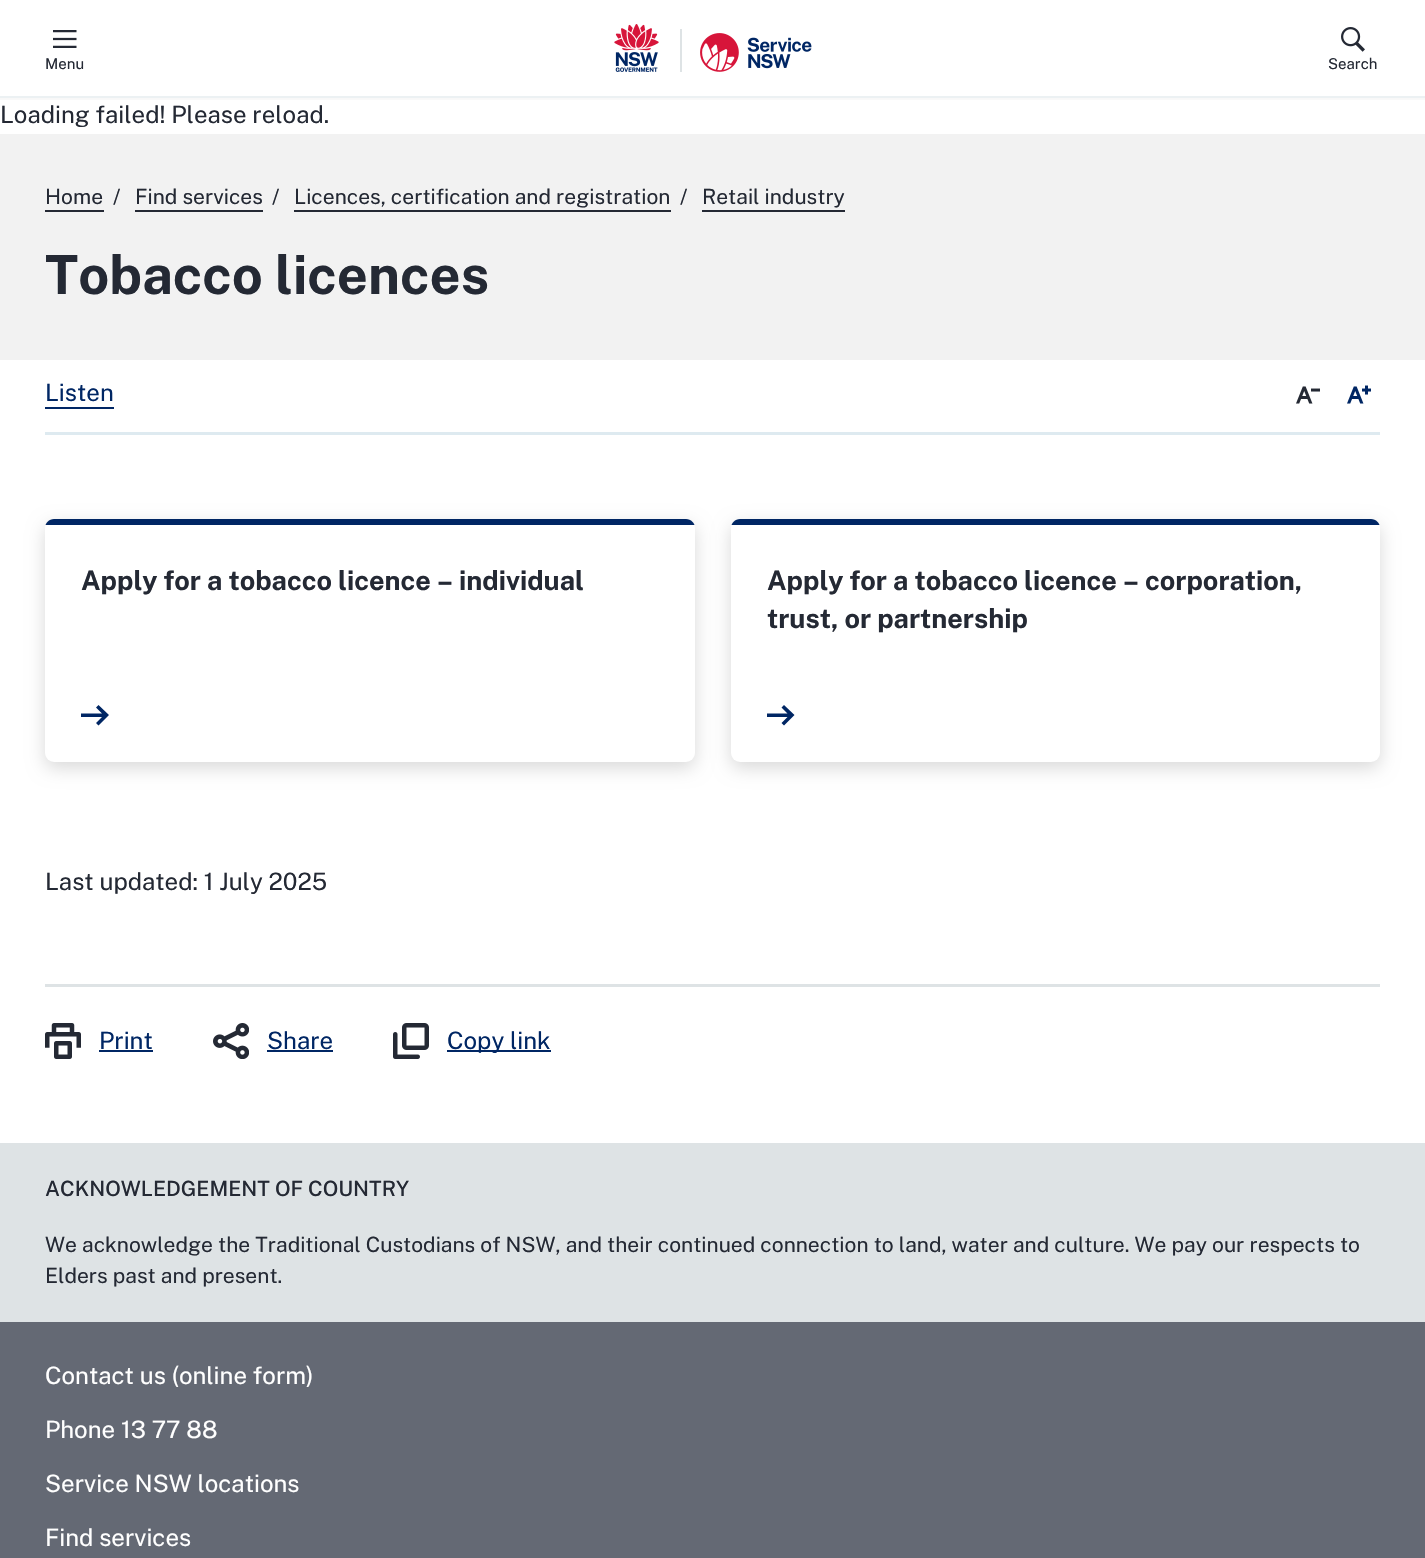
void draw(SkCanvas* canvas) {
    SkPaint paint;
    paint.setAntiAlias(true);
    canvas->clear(0xFFFFFFFF);
    paint.setColor(0xFFECF1F3);
    canvas->drawRect(SkRect::MakeXYWH(0, 96, 1425, 2), paint);
    canvas->drawImageRect(SkImages::DeferredFromEncodedData(SkData::MakeFromFileName("img1.png")), SkRect::MakeXYWH(53, 30, 24, 18), SkSamplingOptions());
    SkFont font1(fontMgr->matchFamilyStyle("Public Sans", SkFontStyle::Normal()), 15);
    font1.setSubpixel(true);
    paint.setColor(0xFF242934);
    canvas->drawString("Menu", 45, 69, font1, paint);
    canvas->drawImageRect(SkImages::DeferredFromEncodedData(SkData::MakeFromFileName("img2.png")), SkRect::MakeXYWH(614, 24, 45, 48), SkSamplingOptions());
    paint.setColor(0xFFDEE3E5);
    canvas->drawRect(SkRect::MakeXYWH(680, 29, 2, 43), paint);
    canvas->drawImageRect(SkImages::DeferredFromEncodedData(SkData::MakeFromFileName("img3.png")), SkRect::MakeXYWH(700, 33, 112, 39), SkSamplingOptions());
    canvas->drawImageRect(SkImages::DeferredFromEncodedData(SkData::MakeFromFileName("img4.png")), SkRect::MakeXYWH(1341, 27, 24, 25), SkSamplingOptions());
    paint.setColor(0xFF242934);
    canvas->drawString("Search", 1328, 69, font1, paint);
    {
        const SkColor colors[] = {0x08000000, 0x00000000};
        const float stops[] = {0, 1};
        const SkPoint ends[] = {{713, 97}, {713, 107}};
        paint.setShader(SkGradientShader::MakeLinear(ends, colors, stops, 2, SkTileMode::kClamp));
        paint.setAlpha(255);
    }
    canvas->drawRect(SkRect::MakeXYWH(0, 98, 1425, 2), paint);
    SkFont font2(fontMgr->matchFamilyStyle("Public Sans", SkFontStyle::Normal()), 24);
    font2.setSubpixel(true);
    paint.setShader(nullptr);
    paint.setColor(0xFF242934);
    canvas->drawString("Loading failed! Please reload.", 0, 123, font2, paint);
    paint.setColor(0xFFF2F2F2);
    canvas->drawRect(SkRect::MakeXYWH(0, 134, 1425, 226), paint);
    SkFont font3(fontMgr->matchFamilyStyle("Public Sans", SkFontStyle::Normal()), 21);
    font3.setSubpixel(true);
    paint.setColor(0xFF242934);
    canvas->drawString("Home", 45, 204, font3, paint);
    canvas->drawRect(SkRect::MakeXYWH(45, 210, 59, 2), paint);
    canvas->drawString("/", 113, 204, font3, paint);
    canvas->drawString("Find services", 135, 204, font3, paint);
    canvas->drawRect(SkRect::MakeXYWH(135, 210, 128, 2), paint);
    canvas->drawString("/", 272, 204, font3, paint);
    canvas->drawString("Licences, certification and registration", 294, 204, font3, paint);
    canvas->drawRect(SkRect::MakeXYWH(294, 210, 377, 2), paint);
    canvas->drawString("/", 680, 204, font3, paint);
    canvas->drawString("Retail industry", 702, 204, font3, paint);
    canvas->drawRect(SkRect::MakeXYWH(702, 210, 143, 2), paint);
    SkFont font4(fontMgr->matchFamilyStyle("Public Sans", SkFontStyle::Bold()), 54);
    font4.setSubpixel(true);
    canvas->drawString("Tobacco licences", 45, 294, font4, paint);
    paint.setColor(0xFFDEEAF0);
    canvas->drawRect(SkRect::MakeXYWH(45, 432, 1335, 3), paint);
    paint.setColor(0xFF002664);
    canvas->drawString("Listen", 45, 401, font2, paint);
    canvas->drawRect(SkRect::MakeXYWH(45, 407, 69, 2), paint);
    canvas->drawImageRect(SkImages::DeferredFromEncodedData(SkData::MakeFromFileName("img5.png")), SkRect::MakeXYWH(1296, 386, 24, 18), SkSamplingOptions());
    canvas->drawImageRect(SkImages::DeferredFromEncodedData(SkData::MakeFromFileName("img6.png")), SkRect::MakeXYWH(1347, 385, 24, 19), SkSamplingOptions());
    paint.setColor(0x26000000);
    paint.setMaskFilter(SkMaskFilter::MakeBlur(kNormal_SkBlurStyle, 9));
    canvas->drawRoundRect(SkRect::MakeXYWH(45, 525, 650, 243), 9, 9, paint);
    paint.setMaskFilter(nullptr);
    paint.setColor(0xFFFFFFFF);
    canvas->drawRoundRect(SkRect::MakeXYWH(45, 519, 650, 243), 9, 9, paint);
    canvas->save();
    canvas->clipPath(SkPathBuilder().moveTo(54, 519).lineTo(686, 519).cubicTo(691, 519, 695, 523, 695, 528).lineTo(695, 753).cubicTo(695, 758, 691, 762, 686, 762).lineTo(54, 762).cubicTo(49, 762, 45, 758, 45, 753).lineTo(45, 528).cubicTo(45, 523, 49, 519, 54, 519).close().detach(), true);
    paint.setColor(0xFF002664);
    canvas->drawRect(SkRect::MakeXYWH(45, 519, 650, 6), paint);
    canvas->restore();
    SkFont font5(fontMgr->matchFamilyStyle("Public Sans", SkFontStyle::Bold()), 27);
    font5.setSubpixel(true);
    paint.setColor(0xFF242934);
    canvas->drawString("Apply for a tobacco licence – individual", 81, 590, font5, paint);
    paint.setColor(0xFF002664);
    canvas->drawPath(SkPathBuilder().moveTo(96, 707.5f).lineTo(102, 713.5f).lineTo(81, 713.5f).lineTo(81, 717).lineTo(102, 717).lineTo(96, 723).lineTo(98.5f, 725.5f).lineTo(109, 715).lineTo(98.5f, 705).close().detach(), paint);
    paint.setColor(0x26000000);
    paint.setMaskFilter(SkMaskFilter::MakeBlur(kNormal_SkBlurStyle, 9));
    canvas->drawRoundRect(SkRect::MakeXYWH(731, 525, 649, 243), 9, 9, paint);
    paint.setMaskFilter(nullptr);
    paint.setColor(0xFFFFFFFF);
    canvas->drawRoundRect(SkRect::MakeXYWH(731, 519, 649, 243), 9, 9, paint);
    canvas->save();
    canvas->clipPath(SkPathBuilder().moveTo(740, 519).lineTo(1371, 519).cubicTo(1376, 519, 1380, 523, 1380, 528).lineTo(1380, 753).cubicTo(1380, 758, 1376, 762, 1371, 762).lineTo(740, 762).cubicTo(735, 762, 731, 758, 731, 753).lineTo(731, 528).cubicTo(731, 523, 735, 519, 740, 519).close().detach(), true);
    paint.setColor(0xFF002664);
    canvas->drawRect(SkRect::MakeXYWH(731, 519, 649, 6), paint);
    canvas->restore();
    paint.setColor(0xFF242934);
    canvas->drawString("Apply for a tobacco licence – corporation,", 767, 590, font5, paint);
    canvas->drawString("trust, or partnership", 767, 628, font5, paint);
    canvas->save();
    canvas->clipRect(SkRect::MakeXYWH(767, 705, 28, 21));
    paint.setColor(0xFF002664);
    canvas->drawPath(SkPathBuilder().moveTo(781.5f, 707.5f).lineTo(787.5f, 713.5f).lineTo(766.5f, 713.5f).lineTo(766.5f, 717).lineTo(787.5f, 717).lineTo(781.5f, 723).lineTo(784, 725.5f).lineTo(794.5f, 715).lineTo(784, 705).close().detach(), paint);
    canvas->restore();
    paint.setColor(0xFF242934);
    canvas->drawString("Last updated: 1 July 2025", 45, 890, font2, paint);
    paint.setColor(0xFFDEE3E5);
    canvas->drawRect(SkRect::MakeXYWH(45, 984, 1335, 3), paint);
    canvas->drawImageRect(SkImages::DeferredFromEncodedData(SkData::MakeFromFileName("img7.png")), SkRect::MakeXYWH(45, 1023, 36, 36), SkSamplingOptions());
    paint.setColor(0xFF002664);
    canvas->drawString("Print", 99, 1049, font2, paint);
    canvas->drawRect(SkRect::MakeXYWH(99, 1050, 54, 2), paint);
    canvas->drawImageRect(SkImages::DeferredFromEncodedData(SkData::MakeFromFileName("img8.png")), SkRect::MakeXYWH(213, 1023, 36, 36), SkSamplingOptions());
    canvas->drawString("Share", 267, 1049, font2, paint);
    canvas->drawRect(SkRect::MakeXYWH(267, 1050, 66, 2), paint);
    canvas->drawImageRect(SkImages::DeferredFromEncodedData(SkData::MakeFromFileName("img9.png")), SkRect::MakeXYWH(393, 1023, 36, 36), SkSamplingOptions());
    canvas->drawRect(SkRect::MakeXYWH(447, 1050, 104, 2), paint);
    canvas->drawString("Copy link", 447, 1049, font2, paint);
    paint.setColor(0xFFDEE3E5);
    canvas->drawRect(SkRect::MakeXYWH(0, 1143, 1425, 179), paint);
    SkFont font6(fontMgr->matchFamilyStyle("Public Sans", SkFontStyle(500, SkFontStyle::kNormal_Width, SkFontStyle::kUpright_Slant)), 21);
    font6.setSubpixel(true);
    paint.setColor(0xFF242934);
    canvas->drawString("ACKNOWLEDGEMENT OF COUNTRY", 45, 1196, font6, paint);
    canvas->drawString("We acknowledge the Traditional Custodians of NSW, and their continued connection to land, water and culture. We pay our respects to", 45, 1252, font3, paint);
    canvas->drawString("Elders past and present.", 45, 1283, font3, paint);
    paint.setColor(0xFF646974);
    canvas->drawRect(SkRect::MakeXYWH(0, 1322, 1425, 236), paint);
    paint.setColor(0xFFFFFFFF);
    canvas->drawString("Contact us (online form)", 45, 1384, font2, paint);
    canvas->drawString("Phone 13 77 88", 45, 1438, font2, paint);
    canvas->drawString("Service NSW locations", 45, 1492, font2, paint);
    canvas->drawString("Find services", 45, 1546, font2, paint);
}
